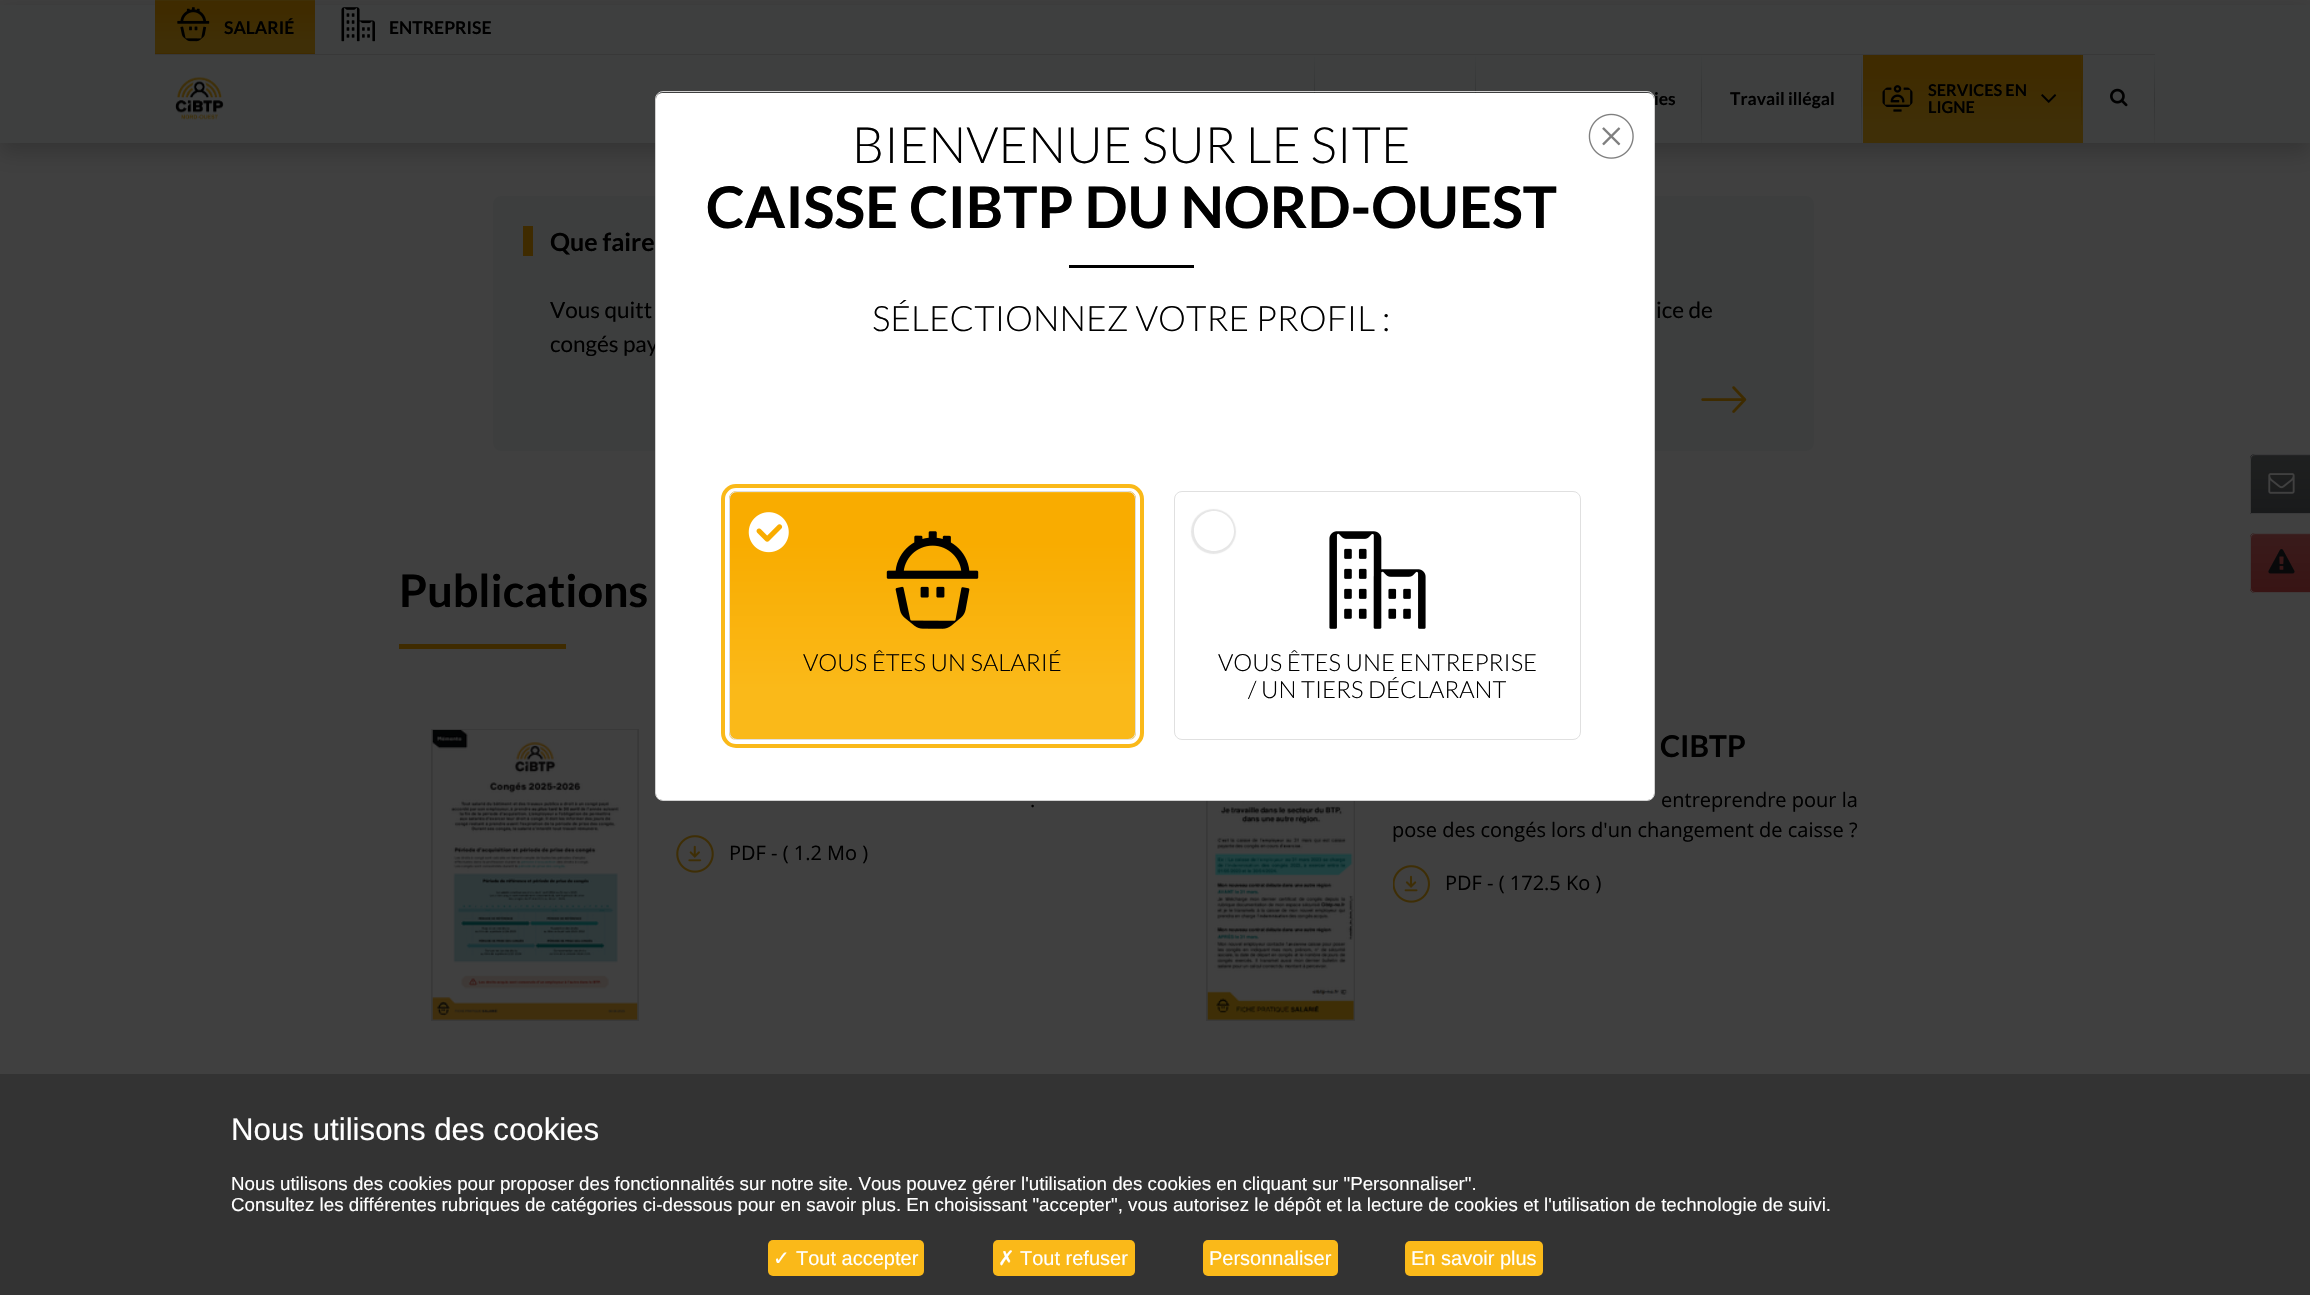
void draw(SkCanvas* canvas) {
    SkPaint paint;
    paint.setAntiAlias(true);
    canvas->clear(0xFF404040);
    paint.setColor(0x2E000000);
    paint.setMaskFilter(SkMaskFilter::MakeBlur(kNormal_SkBlurStyle, 10));
    canvas->drawRect(SkRect::MakeXYWH(0, 10, 2310, 143), paint);
    paint.setMaskFilter(nullptr);
    paint.setColor(0xFF3E3F3F);
    canvas->drawRect(SkRect::MakeXYWH(0, 5, 2310, 138), paint);
    paint.setColor(0xFF383838);
    canvas->drawRect(SkRect::MakeXYWH(155, 54, 2000, 1), paint);
    {
        const SkColor colors[] = {0xFF3F2B00, 0xFF3F2F07};
        const float stops[] = {0.2f, 0.8f};
        const SkPoint ends[] = {{235, -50}, {235, 1.3f}};
        paint.setShader(SkGradientShader::MakeLinear(ends, colors, stops, 2, SkTileMode::kClamp));
        paint.setAlpha(255);
    }
    canvas->drawRect(SkRect::MakeXYWH(155, 0, 160, 1), paint);
    {
        const SkColor colors[] = {0xFF3F2B00, 0xFF3F2F07};
        const float stops[] = {0.2f, 0.8f};
        const SkPoint ends[] = {{235, 1.2f}, {235, 53}};
        paint.setShader(SkGradientShader::MakeLinear(ends, colors, stops, 2, SkTileMode::kClamp));
        paint.setAlpha(255);
    }
    canvas->drawRect(SkRect::MakeXYWH(155, 1, 160, 52), paint);
    {
        const SkColor colors[] = {0xFF3F2B00, 0xFF3F2F07};
        const float stops[] = {0.2f, 0.8f};
        const SkPoint ends[] = {{235, 52}, {235, 104}};
        paint.setShader(SkGradientShader::MakeLinear(ends, colors, stops, 2, SkTileMode::kClamp));
        paint.setAlpha(255);
    }
    canvas->drawRect(SkRect::MakeXYWH(155, 53, 160, 1), paint);
    canvas->drawImageRect(SkImages::DeferredFromEncodedData(SkData::MakeFromFileName("img1.png")), SkRect::MakeXYWH(177, 7, 33, 35), SkSamplingOptions());
    SkFont font1(fontMgr->matchFamilyStyle("Lato", SkFontStyle::Bold()), 17.5f);
    font1.setSubpixel(true);
    paint.setShader(nullptr);
    paint.setColor(0xFF000000);
    canvas->drawString("SALARIÉ", 224, 34, font1, paint);
    canvas->drawImageRect(SkImages::DeferredFromEncodedData(SkData::MakeFromFileName("img2.png")), SkRect::MakeXYWH(341, 7, 34, 35), SkSamplingOptions());
    canvas->drawString("ENTREPRISE", 389, 34, font1, paint);
    canvas->drawImageRect(SkImages::DeferredFromEncodedData(SkData::MakeFromFileName("img3.png")), SkRect::MakeXYWH(175, 77, 49, 43), SkSamplingOptions());
    {
        const SkColor colors[] = {0xFF3C3D3D, 0xFF343535, 0xFF3D3F3F};
        const float stops[] = {0, 0.5f, 1};
        const SkPoint ends[] = {{1314, 143}, {1314, 55}};
        paint.setShader(SkGradientShader::MakeLinear(ends, colors, stops, 3, SkTileMode::kClamp));
        paint.setAlpha(255);
    }
    canvas->drawRect(SkRect::MakeXYWH(1314, 55, 1, 38), paint);
    {
        const SkColor colors[] = {0xFF3C3D3D, 0xFF343535, 0xFF3D3F3F};
        const float stops[] = {0, 0.5f, 1};
        const SkPoint ends[] = {{1476, 143}, {1476, 55}};
        paint.setShader(SkGradientShader::MakeLinear(ends, colors, stops, 3, SkTileMode::kClamp));
        paint.setAlpha(255);
    }
    canvas->drawRect(SkRect::MakeXYWH(1475, 55, 1, 38), paint);
    paint.setShader(nullptr);
    paint.setColor(0xFF000000);
    canvas->drawString("ies", 1654, 105, font1, paint);
    {
        const SkColor colors[] = {0xFF3C3D3D, 0xFF343535, 0xFF3D3F3F};
        const float stops[] = {0, 0.5f, 1};
        const SkPoint ends[] = {{1702, 143}, {1702, 55}};
        paint.setShader(SkGradientShader::MakeLinear(ends, colors, stops, 3, SkTileMode::kClamp));
        paint.setAlpha(255);
    }
    canvas->drawRect(SkRect::MakeXYWH(1701, 55, 1, 88), paint);
    paint.setShader(nullptr);
    paint.setColor(0xFF000000);
    canvas->drawString("Travail illégal", 1730, 105, font1, paint);
    {
        const SkColor colors[] = {0xFF3C3D3D, 0xFF343535, 0xFF3D3F3F};
        const float stops[] = {0, 0.5f, 1};
        const SkPoint ends[] = {{1862, 143}, {1862, 55}};
        paint.setShader(SkGradientShader::MakeLinear(ends, colors, stops, 3, SkTileMode::kClamp));
        paint.setAlpha(255);
    }
    canvas->drawRect(SkRect::MakeXYWH(1861, 55, 1, 88), paint);
    {
        const SkColor colors[] = {0xFF3F2B00, 0xFF3F2F07};
        const float stops[] = {0.2f, 0.8f};
        const SkPoint ends[] = {{1973, 55}, {1973, 143}};
        paint.setShader(SkGradientShader::MakeLinear(ends, colors, stops, 2, SkTileMode::kClamp));
        paint.setAlpha(255);
    }
    canvas->drawRect(SkRect::MakeXYWH(1863, 55, 220, 88), paint);
    canvas->drawImageRect(SkImages::DeferredFromEncodedData(SkData::MakeFromFileName("img4.png")), SkRect::MakeXYWH(1882, 85, 31, 27), SkSamplingOptions());
    SkFont font2(fontMgr->matchFamilyStyle("Lato", SkFontStyle::Bold()), 16.25f);
    font2.setSubpixel(true);
    paint.setShader(nullptr);
    paint.setColor(0xFF000000);
    canvas->drawString("SERVICES EN", 1928, 96, font2, paint);
    canvas->drawImageRect(SkImages::DeferredFromEncodedData(SkData::MakeFromFileName("img5.png")), SkRect::MakeXYWH(2041, 94, 16, 9), SkSamplingOptions());
    {
        const SkColor colors[] = {0x803F2F07, 0xFF372802, 0x803F2F07};
        const float stops[] = {0, 0.5f, 1};
        const SkPoint ends[] = {{2082, 143}, {2082, 55}};
        paint.setShader(SkGradientShader::MakeLinear(ends, colors, stops, 3, SkTileMode::kClamp));
        paint.setAlpha(255);
    }
    canvas->drawRect(SkRect::MakeXYWH(2081, 55, 1, 70), paint);
    paint.setShader(nullptr);
    paint.setColor(0xFF000000);
    canvas->drawString("LIGNE", 1928, 113, font2, paint);
    canvas->drawImageRect(SkImages::DeferredFromEncodedData(SkData::MakeFromFileName("img6.png")), SkRect::MakeXYWH(2110, 88, 18, 19), SkSamplingOptions());
    {
        const SkColor colors[] = {0xFF3C3D3D, 0xFF343535, 0xFF3D3F3F};
        const float stops[] = {0, 0.5f, 1};
        const SkPoint ends[] = {{2154, 143}, {2154, 55}};
        paint.setShader(SkGradientShader::MakeLinear(ends, colors, stops, 3, SkTileMode::kClamp));
        paint.setAlpha(255);
    }
    canvas->drawRect(SkRect::MakeXYWH(2154, 55, 1, 88), paint);
    paint.setShader(nullptr);
    paint.setColor(0xFF3D3E3E);
    canvas->drawRoundRect(SkRect::MakeXYWH(493, 196, 1321, 255), 8, 8, paint);
    SkFont font3(fontMgr->matchFamilyStyle("Lato", SkFontStyle::Normal()), 22.5f);
    font3.setSubpixel(true);
    paint.setColor(0xFF000000);
    canvas->drawString("congés pay", 550, 352, font3, paint);
    paint.setColor(0xFFFFFFFF);
    canvas->drawRoundRect(SkRect::MakeXYWH(656, 93, 998, 707), 6, 6, paint);
    paint.setColor(0xFF383838);
    canvas->drawRect(SkRect::MakeXYWH(1206, 800, 149, 221), paint);
    canvas->drawImageRect(SkImages::DeferredFromEncodedData(SkData::MakeFromFileName("img14.png")), SkRect::MakeXYWH(1207, 800, 147, 220), SkSamplingOptions());
    paint.setStyle(SkPaint::kStroke_Style);
    paint.setStrokeWidth(1);
    paint.setColor(0xE6E0E0E0);
    canvas->drawRoundRect(SkRect::MakeXYWH(655.5f, 91.5f, 999, 709), 7.5f, 7.5f, paint);
    SkFont font4(fontMgr->matchFamilyStyle("Lato", SkFontStyle(300, SkFontStyle::kNormal_Width, SkFontStyle::kUpright_Slant)), 50);
    font4.setSubpixel(true);
    paint.setStyle(SkPaint::kFill_Style);
    paint.setColor(0xFF000000);
    canvas->drawString("BIENVENUE SUR LE SITE", 852, 163, font4, paint);
    SkFont font5(fontMgr->matchFamilyStyle("Lato", SkFontStyle::Bold()), 57.5f);
    font5.setSubpixel(true);
    canvas->drawString("CAISSE CIBTP DU NORD-OUEST", 706, 228, font5, paint);
    canvas->drawRect(SkRect::MakeXYWH(1069, 265, 125, 3), paint);
    SkFont font6(fontMgr->matchFamilyStyle("Lato", SkFontStyle(300, SkFontStyle::kNormal_Width, SkFontStyle::kUpright_Slant)), 35);
    font6.setSubpixel(true);
    canvas->drawString("SÉLECTIONNEZ VOTRE PROFIL :", 872, 331, font6, paint);
    canvas->drawImageRect(SkImages::DeferredFromEncodedData(SkData::MakeFromFileName("img7.png")), SkRect::MakeXYWH(1588, 113, 46, 46), SkSamplingOptions());
    paint.setStyle(SkPaint::kStroke_Style);
    paint.setStrokeWidth(8);
    paint.setColor(0xFFFAB919);
    canvas->drawRoundRect(SkRect::MakeXYWH(725, 488, 415, 256), 11, 11, paint);
    paint.setStrokeWidth(4);
    paint.setColor(0xFFFFFFFF);
    canvas->drawRoundRect(SkRect::MakeXYWH(727, 490, 411, 252), 9, 9, paint);
    canvas->save();
    canvas->clipPath(SkPathBuilder().moveTo(737, 491).lineTo(1128, 491).cubicTo(1132.5f, 491, 1136, 494.5f, 1136, 499).lineTo(1136, 732).cubicTo(1136, 736.5f, 1132.5f, 740, 1128, 740).lineTo(737, 740).cubicTo(732.5f, 740, 729, 736.5f, 729, 732).lineTo(729, 499).cubicTo(729, 494.5f, 732.5f, 491, 737, 491).close().detach(), true);
    paint.setStyle(SkPaint::kFill_Style);
    {
        const SkColor colors[] = {0xFFF9AC00, 0xFFFAB919};
        const float stops[] = {0.2f, 0.8f};
        const SkPoint ends[] = {{933, 247}, {933, 493}};
        paint.setShader(SkGradientShader::MakeLinear(ends, colors, stops, 2, SkTileMode::kClamp));
        paint.setAlpha(255);
    }
    canvas->drawRect(SkRect::MakeXYWH(729, 491, 407, 2), paint);
    {
        const SkColor colors[] = {0xFFF9AC00, 0xFFFAB919};
        const float stops[] = {0.2f, 0.8f};
        const SkPoint ends[] = {{933, 493}, {933, 739}};
        paint.setShader(SkGradientShader::MakeLinear(ends, colors, stops, 2, SkTileMode::kClamp));
        paint.setAlpha(255);
    }
    canvas->drawRect(SkRect::MakeXYWH(729, 493, 407, 246), paint);
    canvas->restore();
    paint.setStyle(SkPaint::kStroke_Style);
    paint.setStrokeWidth(1);
    paint.setShader(nullptr);
    paint.setColor(0xFFE0E0E0);
    canvas->drawRoundRect(SkRect::MakeXYWH(729.5f, 491.5f, 406, 248), 7.5f, 7.5f, paint);
    canvas->drawImageRect(SkImages::DeferredFromEncodedData(SkData::MakeFromFileName("img8.png")), SkRect::MakeXYWH(748, 512, 41, 41), SkSamplingOptions());
    canvas->drawImageRect(SkImages::DeferredFromEncodedData(SkData::MakeFromFileName("img9.png")), SkRect::MakeXYWH(886, 531, 93, 98), SkSamplingOptions());
    SkFont font7(fontMgr->matchFamilyStyle("Lato", SkFontStyle(300, SkFontStyle::kNormal_Width, SkFontStyle::kUpright_Slant)), 23.75f);
    font7.setSubpixel(true);
    paint.setStyle(SkPaint::kFill_Style);
    paint.setColor(0xFF000000);
    canvas->drawString("VOUS ÊTES UN SALARIÉ", 803, 671, font7, paint);
    paint.setStyle(SkPaint::kStroke_Style);
    paint.setColor(0xFFE0E0E0);
    canvas->drawRoundRect(SkRect::MakeXYWH(1174.5f, 491.5f, 406, 248), 7.5f, 7.5f, paint);
    canvas->save();
    canvas->clipPath(SkPathBuilder(SkPathFillType::kEvenOdd).moveTo(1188, 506).lineTo(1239, 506).lineTo(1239, 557).lineTo(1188, 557).close().moveTo(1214, 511).cubicTo(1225, 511, 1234, 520, 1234, 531).cubicTo(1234, 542, 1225, 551, 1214, 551).cubicTo(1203, 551, 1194, 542, 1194, 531).cubicTo(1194, 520, 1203, 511, 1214, 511).close().detach(), true);
    paint.setStyle(SkPaint::kFill_Style);
    paint.setColor(0xCCE0E0E0);
    paint.setMaskFilter(SkMaskFilter::MakeBlur(kNormal_SkBlurStyle, 0.5f));
    canvas->drawRoundRect(SkRect::MakeXYWH(1191, 509, 45, 45), 22.5f, 22.5f, paint);
    paint.setMaskFilter(nullptr);
    canvas->restore();
    canvas->drawImageRect(SkImages::DeferredFromEncodedData(SkData::MakeFromFileName("img10.png")), SkRect::MakeXYWH(1329, 531, 97, 98), SkSamplingOptions());
    paint.setColor(0xFF000000);
    canvas->drawString("VOUS ÊTES UNE ENTREPRISE", 1218, 671, font7, paint);
    canvas->drawString("/ UN TIERS DÉCLARANT", 1248, 698, font7, paint);
    paint.setColor(0xFF3F2B00);
    canvas->drawRect(SkRect::MakeXYWH(523, 226, 10, 30), paint);
    SkFont font8(fontMgr->matchFamilyStyle("Lato", SkFontStyle::Bold()), 25);
    font8.setSubpixel(true);
    paint.setColor(0xFF000000);
    canvas->drawString("Que faire", 550, 251, font8, paint);
    canvas->drawString("Vous quitt", 550, 318, font3, paint);
    canvas->drawString("ice de", 1656, 318, font3, paint);
    canvas->drawImageRect(SkImages::DeferredFromEncodedData(SkData::MakeFromFileName("img11.png")), SkRect::MakeXYWH(1701, 386, 46, 27), SkSamplingOptions());
    SkFont font9(fontMgr->matchFamilyStyle("Lato", SkFontStyle::Bold()), 45);
    font9.setSubpixel(true);
    canvas->drawString("Publications", 399, 607, font9, paint);
    paint.setColor(0xFF3F2B00);
    canvas->drawRect(SkRect::MakeXYWH(399, 644, 167, 5), paint);
    paint.setColor(0xFF383838);
    canvas->drawRect(SkRect::MakeXYWH(431, 729, 208, 292), paint);
    canvas->drawImageRect(SkImages::DeferredFromEncodedData(SkData::MakeFromFileName("img12.png")), SkRect::MakeXYWH(432, 729, 206, 291), SkSamplingOptions());
    SkFont font10(fontMgr->matchFamilyStyle("Open Sans", SkFontStyle::Normal()), 20);
    font10.setSubpixel(true);
    paint.setColor(0xFF000000);
    canvas->drawString(".", 1030, 807, font10, paint);
    canvas->drawImageRect(SkImages::DeferredFromEncodedData(SkData::MakeFromFileName("img13.png")), SkRect::MakeXYWH(676, 835, 38, 38), SkSamplingOptions());
    canvas->drawString("PDF - ( 1.2 Mo )", 729, 860, font10, paint);
    SkFont font11(fontMgr->matchFamilyStyle("Lato", SkFontStyle::Bold()), 30);
    font11.setSubpixel(true);
    canvas->drawString("CIBTP", 1660, 757, font11, paint);
    canvas->drawString("entreprendre pour la", 1661, 807, font10, paint);
    canvas->drawString("pose des congés lors d'un changement de caisse ?", 1392, 837, font10, paint);
    canvas->drawImageRect(SkImages::DeferredFromEncodedData(SkData::MakeFromFileName("img15.png")), SkRect::MakeXYWH(1393, 865, 37, 38), SkSamplingOptions());
    canvas->drawString("PDF - ( 172.5 Ko )", 1445, 890, font10, paint);
    paint.setColor(0xFF191A1B);
    canvas->drawPath(SkPathBuilder().moveTo(2255, 454).lineTo(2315, 454).lineTo(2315, 514).lineTo(2250, 514).lineTo(2250, 459).cubicTo(2250, 456, 2252, 454, 2255, 454).close().detach(), paint);
    canvas->save();
    canvas->clipPath(SkPathBuilder().moveTo(2255, 454).lineTo(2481, 454).lineTo(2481, 514).lineTo(2250, 514).lineTo(2250, 459).cubicTo(2250, 456, 2252, 454, 2255, 454).close().detach(), true);
    {
        const SkColor colors[] = {0xFF1F2020, 0xFF191A1B};
        const float stops[] = {0, 1};
        const SkPoint ends[] = {{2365, 455}, {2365, 513}};
        paint.setShader(SkGradientShader::MakeLinear(ends, colors, stops, 2, SkTileMode::kClamp));
        paint.setAlpha(255);
    }
    canvas->drawRect(SkRect::MakeXYWH(2250, 455, 60, 58), paint);
    canvas->restore();
    paint.setShader(nullptr);
    paint.setColor(0xFF242425);
    canvas->drawPath(SkPathBuilder().moveTo(2255, 456).lineTo(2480, 456).lineTo(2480, 455).lineTo(2255, 455).cubicTo(2252, 455, 2251, 457, 2251, 460).cubicTo(2251, 458, 2253, 456, 2255, 456).close().detach(), paint);
    paint.setStyle(SkPaint::kStroke_Style);
    paint.setColor(0xD9404040);
    canvas->drawPath(SkPathBuilder().moveTo(2255, 454.5f).lineTo(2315.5f, 454.5f).lineTo(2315.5f, 513.5f).lineTo(2250.5f, 513.5f).lineTo(2250.5f, 459).cubicTo(2250.5f, 456.5f, 2252.5f, 454.5f, 2255, 454.5f).close().detach(), paint);
    canvas->drawImageRect(SkImages::DeferredFromEncodedData(SkData::MakeFromFileName("img16.png")), SkRect::MakeXYWH(2268, 473, 27, 21), SkSamplingOptions());
    paint.setStyle(SkPaint::kFill_Style);
    paint.setColor(0xFF381414);
    canvas->drawPath(SkPathBuilder().moveTo(2255, 533).lineTo(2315, 533).lineTo(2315, 593).lineTo(2255, 593).cubicTo(2252, 593, 2250, 591, 2250, 588).lineTo(2250, 538).cubicTo(2250, 535, 2252, 533, 2255, 533).close().detach(), paint);
    canvas->save();
    canvas->clipPath(SkPathBuilder().moveTo(2255, 533).lineTo(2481, 533).lineTo(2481, 593).lineTo(2255, 593).cubicTo(2252, 593, 2250, 591, 2250, 588).lineTo(2250, 538).cubicTo(2250, 535, 2252, 533, 2255, 533).close().detach(), true);
    {
        const SkColor colors[] = {0xFF391B1B, 0xFF381414};
        const float stops[] = {0, 1};
        const SkPoint ends[] = {{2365, 534}, {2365, 591}};
        paint.setShader(SkGradientShader::MakeLinear(ends, colors, stops, 2, SkTileMode::kClamp));
        paint.setAlpha(255);
    }
    canvas->drawRect(SkRect::MakeXYWH(2250, 534, 60, 57), paint);
    canvas->restore();
    paint.setShader(nullptr);
    paint.setColor(0xFF3A2020);
    canvas->drawPath(SkPathBuilder().moveTo(2255, 535).lineTo(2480, 535).lineTo(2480, 534).lineTo(2255, 534).cubicTo(2252, 534, 2251, 536, 2251, 539).cubicTo(2251, 537, 2253, 535, 2255, 535).close().detach(), paint);
    paint.setStyle(SkPaint::kStroke_Style);
    paint.setColor(0xD9404040);
    canvas->drawPath(SkPathBuilder().moveTo(2255, 533.5f).lineTo(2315.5f, 533.5f).lineTo(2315.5f, 592.5f).lineTo(2255, 592.5f).cubicTo(2252.5f, 592.5f, 2250.5f, 590.5f, 2250.5f, 588).lineTo(2250.5f, 538).cubicTo(2250.5f, 535.5f, 2252.5f, 533.5f, 2255, 533.5f).close().detach(), paint);
    canvas->drawImageRect(SkImages::DeferredFromEncodedData(SkData::MakeFromFileName("img17.png")), SkRect::MakeXYWH(2268, 549, 27, 25), SkSamplingOptions());
    paint.setStyle(SkPaint::kFill_Style);
    paint.setColor(0xFF333333);
    canvas->drawRect(SkRect::MakeXYWH(0, 1074, 2310, 221), paint);
    SkFont font12(fontMgr->matchFamilyStyle("Liberation Sans", SkFontStyle::Normal()), 31.25f);
    font12.setSubpixel(true);
    paint.setColor(0xFFFFFFFF);
    canvas->drawString("Nous utilisons des cookies", 231, 1140, font12, paint);
    SkFont font13(fontMgr->matchFamilyStyle("Liberation Sans", SkFontStyle::Normal()), 18.75f);
    font13.setSubpixel(true);
    canvas->drawString("Nous utilisons des cookies pour proposer des fonctionnalités sur notre site. Vous pouvez gérer l'utilisation des cookies en cliquant sur \"Personnaliser\".", 231, 1190, font13, paint);
    canvas->drawString("Consultez les différentes rubriques de catégories ci-dessous pour en savoir plus. En choisissant \"accepter\", vous autorisez le dépôt et la lecture de cookies et l'utilisation de technologie de suivi.", 231, 1211, font13, paint);
    paint.setColor(0xFFFAB919);
    canvas->drawRoundRect(SkRect::MakeXYWH(768, 1240, 156, 36), 5, 5, paint);
    SkFont font14(fontMgr->matchFamilyStyle("DejaVu Sans", SkFontStyle::Normal()), 20);
    font14.setSubpixel(true);
    paint.setColor(0xFFFFFFFF);
    canvas->drawString("✓", 773, 1265, font14, paint);
    SkFont font15(fontMgr->matchFamilyStyle("Liberation Sans", SkFontStyle::Normal()), 20);
    font15.setSubpixel(true);
    canvas->drawString("Tout accepter", 796, 1265, font15, paint);
    paint.setColor(0xFFFAB919);
    canvas->drawRoundRect(SkRect::MakeXYWH(993, 1240, 142, 36), 5, 5, paint);
    paint.setColor(0xFFFFFFFF);
    canvas->drawString("✗", 998, 1265, font14, paint);
    canvas->drawString("Tout refuser", 1020, 1265, font15, paint);
    paint.setColor(0xFFFAB919);
    canvas->drawRoundRect(SkRect::MakeXYWH(1203, 1240, 135, 36), 5, 5, paint);
    paint.setColor(0xFFFFFFFF);
    canvas->drawString("Personnaliser", 1209, 1265, font15, paint);
    paint.setColor(0xFFFAB919);
    canvas->drawRoundRect(SkRect::MakeXYWH(1405, 1241, 138, 35), 5, 5, paint);
    paint.setColor(0xFFFFFFFF);
    canvas->drawString("En savoir plus", 1411, 1265, font15, paint);
}
